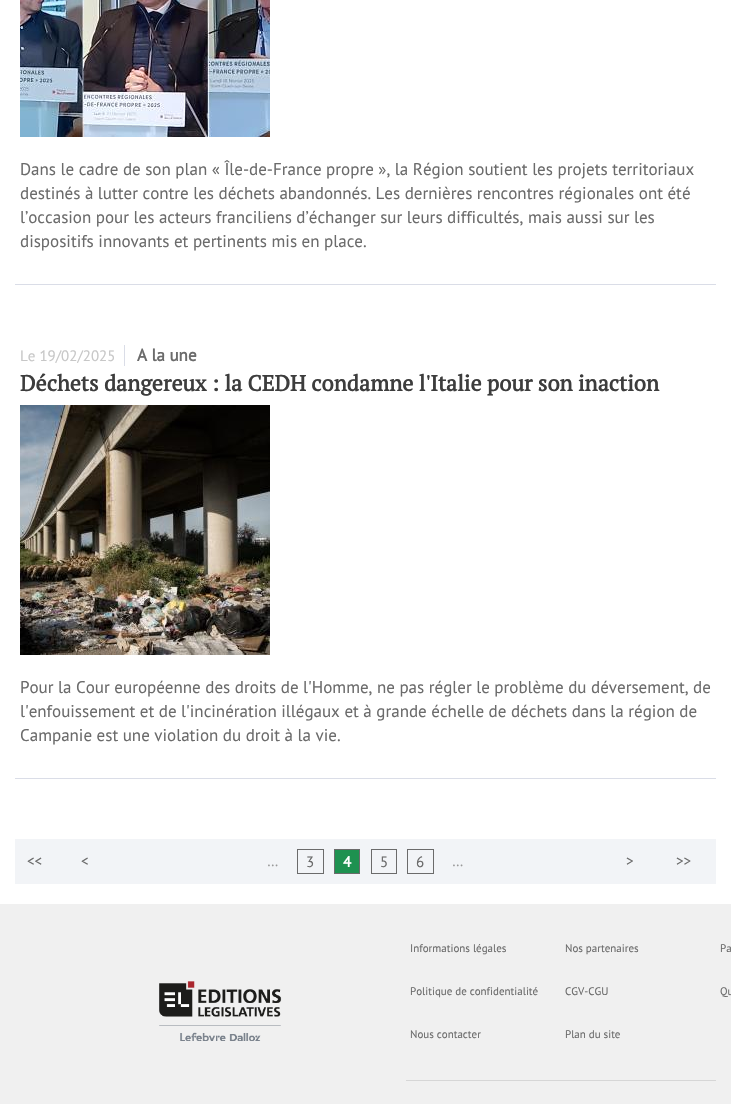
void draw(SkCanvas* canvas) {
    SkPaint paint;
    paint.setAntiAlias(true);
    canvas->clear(0xFFFFFFFF);
    paint.setColor(0xFFDADDE7);
    canvas->drawRect(SkRect::MakeXYWH(15, 284, 701, 1), paint);
    canvas->drawImageRect(SkImages::DeferredFromEncodedData(SkData::MakeFromFileName("img1.png")), SkRect::MakeXYWH(20, 0, 250, 137), SkSamplingOptions());
    SkFont font1(fontMgr->matchFamilyStyle("PT Sans", SkFontStyle::Normal()), 17);
    font1.setSubpixel(true);
    paint.setColor(0xFF6B6B6B);
    canvas->drawString("Dans le cadre de son plan « Île-de-France propre », la Région soutient les projets territoriaux", 20, 175, font1, paint);
    canvas->drawString("destinés à lutter contre les déchets abandonnés. Les dernières rencontres régionales ont été", 20, 199, font1, paint);
    canvas->drawString("l’occasion pour les acteurs franciliens d’échanger sur leurs difficultés, mais aussi sur les", 20, 223, font1, paint);
    canvas->drawString("dispositifs innovants et pertinents mis en place.", 20, 247, font1, paint);
    paint.setColor(0xFFDADDE7);
    canvas->drawRect(SkRect::MakeXYWH(15, 778, 701, 1), paint);
    SkFont font2(fontMgr->matchFamilyStyle("PT Sans", SkFontStyle::Normal()), 15);
    font2.setSubpixel(true);
    paint.setColor(0xFFC7C7C7);
    canvas->drawString("Le 19/02/2025", 20, 361, font2, paint);
    paint.setColor(0xFFDADDE7);
    canvas->drawRect(SkRect::MakeXYWH(124, 345, 1, 21), paint);
    SkFont font3(fontMgr->matchFamilyStyle("PT Sans", SkFontStyle::Bold()), 17);
    font3.setSubpixel(true);
    paint.setColor(0xFF6B6B6B);
    canvas->drawString("A la une", 137, 361, font3, paint);
    SkFont font4(fontMgr->matchFamilyStyle("PT Serif", SkFontStyle::Bold()), 22);
    font4.setSubpixel(true);
    paint.setColor(0xFF3D3D3D);
    canvas->drawString("Déchets dangereux : la CEDH condamne l'Italie pour son inaction", 20, 391, font4, paint);
    canvas->drawImageRect(SkImages::DeferredFromEncodedData(SkData::MakeFromFileName("img2.png")), SkRect::MakeXYWH(20, 405, 250, 250), SkSamplingOptions());
    paint.setColor(0xFF6B6B6B);
    canvas->drawString("Pour la Cour européenne des droits de l'Homme, ne pas régler le problème du déversement, de", 20, 693, font1, paint);
    canvas->drawString("l'enfouissement et de l'incinération illégaux et à grande échelle de déchets dans la région de", 20, 717, font1, paint);
    canvas->drawString("Campanie est une violation du droit à la vie.", 20, 741, font1, paint);
    paint.setColor(0xFFF2F4F7);
    canvas->drawRect(SkRect::MakeXYWH(15, 839, 701, 45), paint);
    paint.setColor(0xFF6B6B6B);
    canvas->drawString("<<", 27, 866, font2, paint);
    canvas->drawString("<", 81, 866, font2, paint);
    paint.setStyle(SkPaint::kStroke_Style);
    paint.setStrokeWidth(1);
    canvas->drawRect(SkRect::MakeXYWH(297.5f, 849.5f, 26, 24), paint);
    paint.setStyle(SkPaint::kFill_Style);
    canvas->drawString("3", 306, 867, font2, paint);
    paint.setColor(0xFF1E9150);
    canvas->drawRect(SkRect::MakeXYWH(334.5f, 849.5f, 25, 24), paint);
    paint.setStyle(SkPaint::kStroke_Style);
    paint.setColor(0xFF6B6B6B);
    canvas->drawRect(SkRect::MakeXYWH(334.5f, 849.5f, 25, 24), paint);
    SkFont font5(fontMgr->matchFamilyStyle("PT Sans", SkFontStyle::Bold()), 15);
    font5.setSubpixel(true);
    paint.setStyle(SkPaint::kFill_Style);
    paint.setColor(0xFFFFFFFF);
    canvas->drawString("4", 343, 867, font5, paint);
    paint.setStyle(SkPaint::kStroke_Style);
    paint.setColor(0xFF6B6B6B);
    canvas->drawRect(SkRect::MakeXYWH(371.5f, 849.5f, 25, 24), paint);
    paint.setStyle(SkPaint::kFill_Style);
    canvas->drawString("5", 380, 867, font2, paint);
    paint.setStyle(SkPaint::kStroke_Style);
    canvas->drawRect(SkRect::MakeXYWH(407.5f, 849.5f, 26, 24), paint);
    paint.setStyle(SkPaint::kFill_Style);
    canvas->drawString("6", 416, 867, font2, paint);
    canvas->drawString(">", 626, 866, font2, paint);
    canvas->drawString(">>", 676, 866, font2, paint);
    paint.setColor(0xFF999999);
    canvas->drawString("…", 267, 866, font2, paint);
    canvas->drawString("…", 452, 866, font2, paint);
    paint.setColor(0xFFF0F0F0);
    canvas->drawRect(SkRect::MakeXYWH(0, 904, 731, 200), paint);
    canvas->drawImageRect(SkImages::DeferredFromEncodedData(SkData::MakeFromFileName("img3.png")), SkRect::MakeXYWH(159, 981, 123, 60), SkSamplingOptions());
    paint.setColor(0xFFD6D6D6);
    canvas->drawRect(SkRect::MakeXYWH(406, 1080, 310, 1), paint);
    SkFont font6(fontMgr->matchFamilyStyle("PT Sans", SkFontStyle::Normal()), 11);
    font6.setSubpixel(true);
    paint.setColor(0xFF6B6B6B);
    canvas->drawString("Informations légales", 410, 952, font6, paint);
    canvas->drawString("Nos partenaires", 565, 952, font6, paint);
    canvas->drawString("Pa", 720, 952, font6, paint);
    canvas->drawString("Politique de confidentialité", 410, 995, font6, paint);
    canvas->drawString("CGV-CGU", 565, 995, font6, paint);
    canvas->drawString("Qu", 720, 995, font6, paint);
    canvas->drawString("Nous contacter", 410, 1038, font6, paint);
    canvas->drawString("Plan du site", 565, 1038, font6, paint);
}
